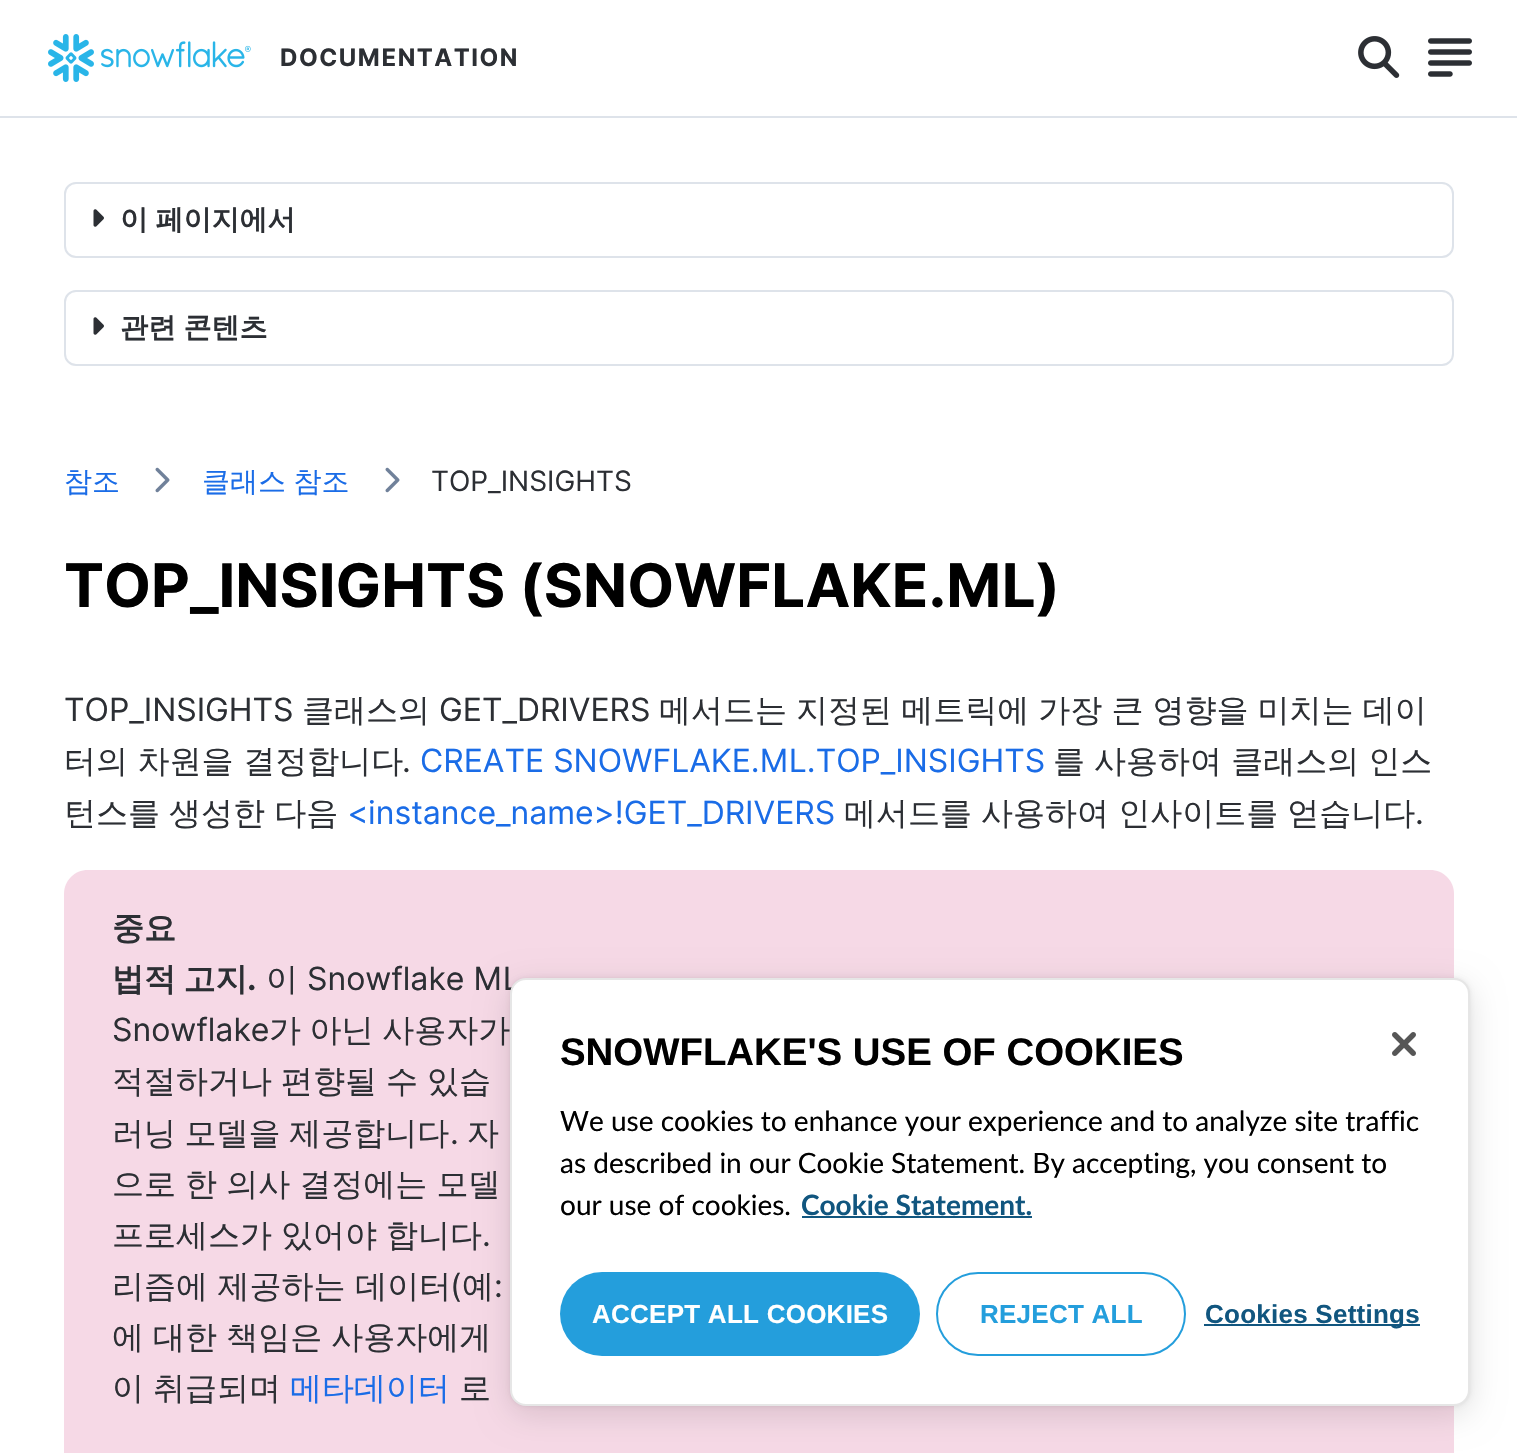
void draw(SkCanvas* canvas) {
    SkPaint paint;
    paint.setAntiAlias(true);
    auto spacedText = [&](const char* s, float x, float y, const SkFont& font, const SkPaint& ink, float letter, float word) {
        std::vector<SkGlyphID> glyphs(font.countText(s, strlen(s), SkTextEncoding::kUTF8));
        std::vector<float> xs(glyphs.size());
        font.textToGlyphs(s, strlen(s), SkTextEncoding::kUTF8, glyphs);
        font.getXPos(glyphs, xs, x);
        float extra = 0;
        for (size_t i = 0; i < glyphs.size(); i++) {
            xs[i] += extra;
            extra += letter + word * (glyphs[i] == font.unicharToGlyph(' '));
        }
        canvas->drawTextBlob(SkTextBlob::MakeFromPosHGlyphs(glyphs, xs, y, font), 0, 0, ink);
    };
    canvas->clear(0xFFFFFFFF);
    paint.setColor(0xFFDEE3EA);
    canvas->drawRect(SkRect::MakeXYWH(0, 116, 1517, 2), paint);
    canvas->drawImageRect(SkImages::DeferredFromEncodedData(SkData::MakeFromFileName("img1.png")), SkRect::MakeXYWH(48, 34, 203, 48), SkSamplingOptions());
    SkFont font1(fontMgr->matchFamilyStyle("Inter", SkFontStyle::Bold()), 24);
    font1.setSubpixel(true);
    paint.setColor(0xFF2C2F34);
    spacedText("DOCUMENTATION", 280, 66, font1, paint, 1.5f, 0);
    canvas->drawImageRect(SkImages::DeferredFromEncodedData(SkData::MakeFromFileName("img2.png")), SkRect::MakeXYWH(1358, 36, 42, 42), SkSamplingOptions());
    canvas->drawImageRect(SkImages::DeferredFromEncodedData(SkData::MakeFromFileName("img3.png")), SkRect::MakeXYWH(1428, 38, 44, 39), SkSamplingOptions());
    paint.setStyle(SkPaint::kStroke_Style);
    paint.setStrokeWidth(2);
    paint.setColor(0xFFDEE3EA);
    canvas->drawRoundRect(SkRect::MakeXYWH(65, 183, 1388, 74), 11, 11, paint);
    canvas->drawImageRect(SkImages::DeferredFromEncodedData(SkData::MakeFromFileName("img4.png")), SkRect::MakeXYWH(93, 209, 11, 18), SkSamplingOptions());
    SkFont font2(fontMgr->matchFamilyStyle("WenQuanYi Zen Hei", SkFontStyle::Bold()), 28);
    font2.setSubpixel(true);
    paint.setStyle(SkPaint::kFill_Style);
    paint.setColor(0xFF2C2F34);
    spacedText("이 페이지에서", 120, 229, font2, paint, 0, -1);
    paint.setStyle(SkPaint::kStroke_Style);
    paint.setColor(0xFFDEE3EA);
    canvas->drawRoundRect(SkRect::MakeXYWH(65, 291, 1388, 74), 11, 11, paint);
    canvas->drawImageRect(SkImages::DeferredFromEncodedData(SkData::MakeFromFileName("img4.png")), SkRect::MakeXYWH(93, 317, 11, 18), SkSamplingOptions());
    paint.setStyle(SkPaint::kFill_Style);
    paint.setColor(0xFF2C2F34);
    spacedText("관련 콘텐츠", 120, 337, font2, paint, 0, -1);
    SkFont font3(fontMgr->matchFamilyStyle("WenQuanYi Zen Hei", SkFontStyle(500, SkFontStyle::kNormal_Width, SkFontStyle::kUpright_Slant)), 28);
    font3.setSubpixel(true);
    paint.setColor(0xFF1A6CE7);
    canvas->drawString("참조", 64, 491, font3, paint);
    canvas->drawImageRect(SkImages::DeferredFromEncodedData(SkData::MakeFromFileName("img5.png")), SkRect::MakeXYWH(155, 467, 15, 26), SkSamplingOptions());
    spacedText("클래스 참조", 202, 491, font3, paint, 0, -1);
    canvas->drawImageRect(SkImages::DeferredFromEncodedData(SkData::MakeFromFileName("img5.png")), SkRect::MakeXYWH(385, 467, 15, 26), SkSamplingOptions());
    SkFont font4(fontMgr->matchFamilyStyle("Inter", SkFontStyle::Normal()), 28);
    font4.setSubpixel(true);
    paint.setColor(0xFF2C2F34);
    canvas->drawString("TOP_INSIGHTS", 431, 491, font4, paint);
    SkFont font5(fontMgr->matchFamilyStyle("Inter", SkFontStyle::Bold()), 60);
    font5.setSubpixel(true);
    paint.setColor(0xFF000000);
    canvas->drawString("TOP_INSIGHTS (SNOWFLAKE.ML)", 64, 607, font5, paint);
    SkFont font6(fontMgr->matchFamilyStyle("Inter", SkFontStyle::Normal()), 32);
    font6.setSubpixel(true);
    paint.setColor(0xFF2C2F34);
    canvas->drawString("TOP_INSIGHTS", 64, 721, font6, paint);
    SkFont font7(fontMgr->matchFamilyStyle("WenQuanYi Zen Hei", SkFontStyle(500, SkFontStyle::kNormal_Width, SkFontStyle::kUpright_Slant)), 32);
    font7.setSubpixel(true);
    canvas->drawString("클래스의", 302, 721, font7, paint);
    canvas->drawString("GET_DRIVERS", 439, 721, font6, paint);
    spacedText("메서드는 지정된 메트릭에 가장 큰 영향을 미치는 데이", 659, 721, font7, paint, 0, -0.5f);
    canvas->drawString("터의 차원을 결정합니다", 64, 772, font7, paint);
    canvas->drawString(".", 402, 772, font6, paint);
    paint.setColor(0xFF1A6CE7);
    canvas->drawString("CREATE SNOWFLAKE.ML.TOP_INSIGHTS", 420, 772, font6, paint);
    paint.setColor(0xFF2C2F34);
    spacedText("를 사용하여 클래스의 인스", 1053, 772, font7, paint, 0, -0.5f);
    spacedText("턴스를 생성한 다음", 64, 824, font7, paint, 0, -0.5f);
    paint.setColor(0xFF1A6CE7);
    canvas->drawString("<instance_name>!GET_DRIVERS", 347, 824, font6, paint);
    paint.setColor(0xFF2C2F34);
    spacedText("메서드를 사용하여 인사이트를 얻습니다", 844, 824, font7, paint, 0, -0.5f);
    canvas->drawString(".", 1415, 824, font6, paint);
    paint.setColor(0xFFF6D9E6);
    canvas->drawPath(SkPathBuilder().moveTo(88, 870).lineTo(1430, 870).cubicTo(1443.5f, 870, 1454, 880.5f, 1454, 894).lineTo(1454, 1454).lineTo(64, 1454).lineTo(64, 894).cubicTo(64, 880.5f, 74.5f, 870, 88, 870).close().detach(), paint);
    SkFont font8(fontMgr->matchFamilyStyle("WenQuanYi Zen Hei", SkFontStyle::Bold()), 32);
    font8.setSubpixel(true);
    paint.setColor(0xFF2C2F34);
    canvas->drawString("중요", 112, 939, font8, paint);
    spacedText("법적 고지", 112, 990, font8, paint, 0, -2);
    SkFont font9(fontMgr->matchFamilyStyle("Inter", SkFontStyle::Bold()), 32);
    font9.setSubpixel(true);
    canvas->drawString(".", 247, 990, font9, paint);
    canvas->drawString("이", 266, 990, font7, paint);
    canvas->drawString("Snowflake ML", 307, 990, font6, paint);
    canvas->drawString("Snowflake", 112, 1041, font6, paint);
    spacedText("가 아닌 사용자가", 269, 1041, font7, paint, 0, -1);
    canvas->drawString("적절하거나", 112, 1092, font7, paint);
    canvas->drawString("편향될", 281, 1092, font7, paint);
    canvas->drawString("수", 386, 1092, font7, paint);
    canvas->drawString("있습", 427, 1092, font7, paint);
    spacedText("러닝 모델을 제공합니다", 112, 1144, font7, paint, 0, -1);
    canvas->drawString(".", 450, 1144, font6, paint);
    spacedText("자", 467, 1144, font7, paint, 0, -1);
    spacedText("으로 한 의사 결정에는 모델", 112, 1195, font7, paint, 0, -0.5f);
    canvas->drawString("프로세스가", 112, 1246, font7, paint);
    canvas->drawString("있어야", 281, 1246, font7, paint);
    canvas->drawString("합니다", 386, 1246, font7, paint);
    canvas->drawString(".", 482, 1246, font6, paint);
    canvas->drawString("리즘에 제공하는 데이터", 112, 1297, font7, paint);
    canvas->drawString("(", 450, 1297, font6, paint);
    canvas->drawString("예", 462, 1297, font7, paint);
    canvas->drawString(":", 494, 1297, font6, paint);
    spacedText("에 대한 책임은 사용자에게", 112, 1348, font7, paint, 0, -0.5f);
    spacedText("이 취급되며", 112, 1399, font7, paint, 0, -0.5f);
    paint.setColor(0xFF1A6CE7);
    canvas->drawString("메타데이터", 290, 1399, font7, paint);
    paint.setColor(0xFF2C2F34);
    spacedText("로", 459, 1399, font7, paint, 0, -0.5f);
    paint.setColor(0x14000000);
    paint.setMaskFilter(SkMaskFilter::MakeBlur(kNormal_SkBlurStyle, 2));
    canvas->drawRoundRect(SkRect::MakeXYWH(510, 978, 960, 428), 16, 16, paint);
    paint.setMaskFilter(nullptr);
    paint.setColor(0x1F000000);
    paint.setMaskFilter(SkMaskFilter::MakeBlur(kNormal_SkBlurStyle, 16));
    canvas->drawRoundRect(SkRect::MakeXYWH(510, 986, 960, 428), 16, 16, paint);
    paint.setMaskFilter(nullptr);
    paint.setColor(0xFFFFFFFF);
    canvas->drawRoundRect(SkRect::MakeXYWH(511, 979, 958, 426), 15, 15, paint);
    paint.setStyle(SkPaint::kStroke_Style);
    paint.setColor(0xFFE6E6E6);
    canvas->drawRoundRect(SkRect::MakeXYWH(511, 979, 958, 426), 15, 15, paint);
    canvas->drawImageRect(SkImages::DeferredFromEncodedData(SkData::MakeFromFileName("img6.png")), SkRect::MakeXYWH(1392, 1032, 24, 24), SkSamplingOptions());
    SkFont font10(fontMgr->matchFamilyStyle("Liberation Sans", SkFontStyle::Bold()), 38.4f);
    font10.setSubpixel(true);
    paint.setStyle(SkPaint::kFill_Style);
    paint.setColor(0xFF000000);
    canvas->drawString("SNOWFLAKE'S USE OF COOKIES", 560, 1065, font10, paint);
    SkFont font11(fontMgr->matchFamilyStyle("Lato", SkFontStyle::Normal()), 28);
    font11.setSubpixel(true);
    canvas->drawString("We use cookies to enhance your experience and to analyze site traffic", 560, 1131, font11, paint);
    canvas->drawString("as described in our Cookie Statement. By accepting, you consent to", 560, 1173, font11, paint);
    canvas->drawString("our use of cookies.", 560, 1215, font11, paint);
    SkFont font12(fontMgr->matchFamilyStyle("Lato", SkFontStyle::Bold()), 28);
    font12.setSubpixel(true);
    paint.setColor(0xFF11567F);
    canvas->drawString("Cookie Statement.", 801, 1215, font12, paint);
    canvas->drawRect(SkRect::MakeXYWH(802, 1216, 230, 2), paint);
    paint.setColor(0xFF249EDC);
    canvas->drawRoundRect(SkRect::MakeXYWH(560, 1272, 360, 84), 42, 42, paint);
    SkFont font13(fontMgr->matchFamilyStyle("Liberation Sans", SkFontStyle::Bold()), 26);
    font13.setSubpixel(true);
    paint.setColor(0xFFFFFFFF);
    spacedText("ACCEPT ALL COOKIES", 592, 1323, font13, paint, 0.25f, 0);
    paint.setStyle(SkPaint::kStroke_Style);
    paint.setColor(0xFF249EDC);
    canvas->drawRoundRect(SkRect::MakeXYWH(937, 1273, 248, 82), 41, 41, paint);
    paint.setStyle(SkPaint::kFill_Style);
    spacedText("REJECT ALL", 980, 1323, font13, paint, 0.25f, 0);
    paint.setColor(0xFF11567F);
    canvas->drawRect(SkRect::MakeXYWH(1204, 1324, 216, 2), paint);
    spacedText("Cookies Settings", 1205, 1323, font13, paint, 0.25f, 0);
}
